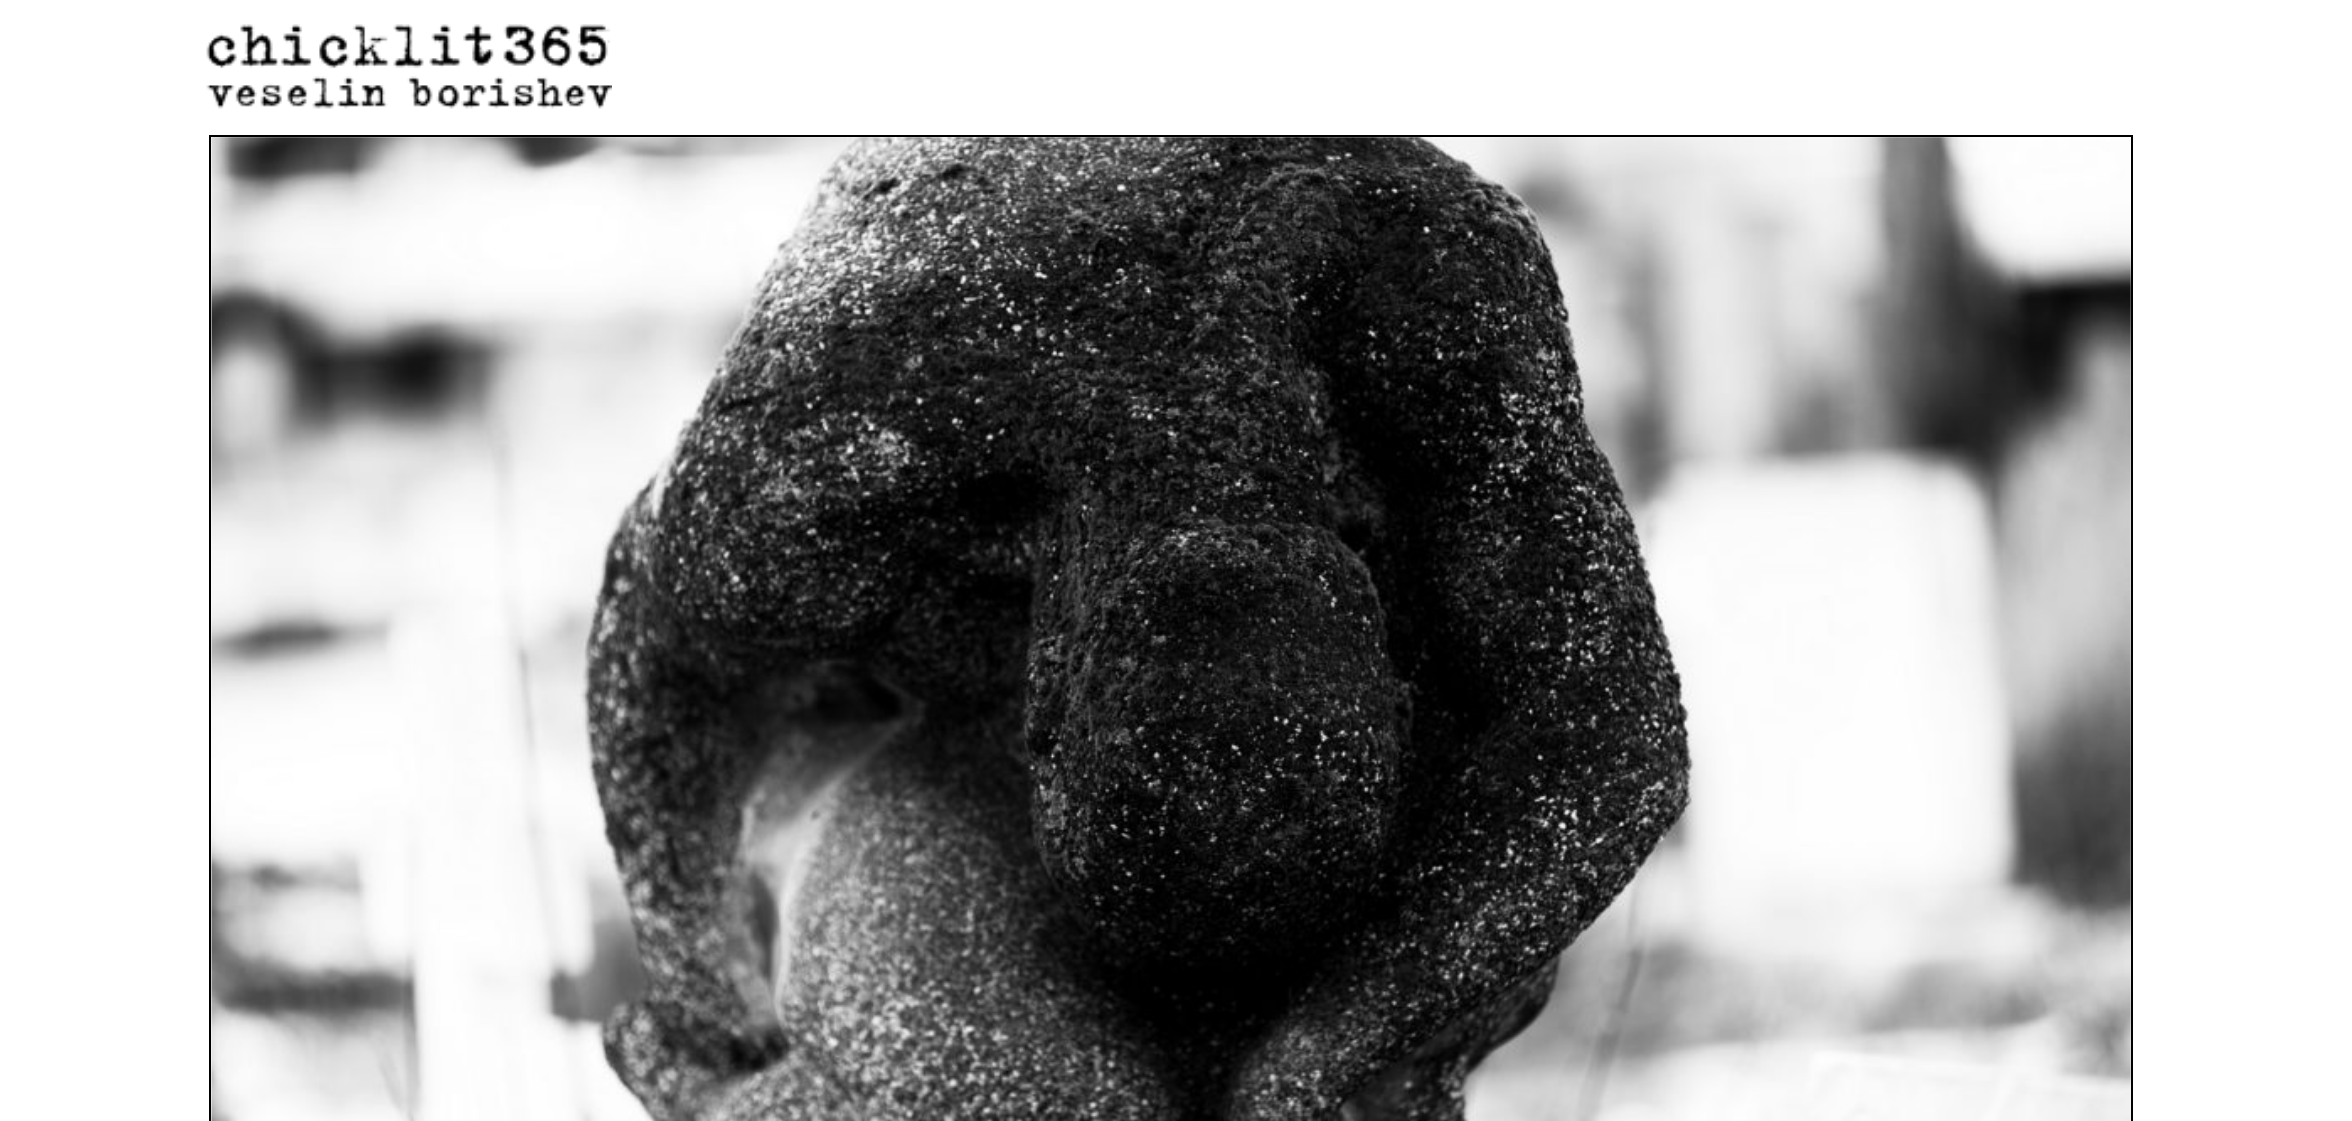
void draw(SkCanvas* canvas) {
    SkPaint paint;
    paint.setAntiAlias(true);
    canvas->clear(0xFFFFFFFF);
    canvas->drawImageRect(SkImages::DeferredFromEncodedData(SkData::MakeFromFileName("img1.png")), SkRect::MakeXYWH(206, 24, 406, 85), SkSamplingOptions());
    paint.setStyle(SkPaint::kStroke_Style);
    paint.setStrokeWidth(2);
    paint.setColor(0xFF000000);
    canvas->drawRect(SkRect::MakeXYWH(210, 136, 1922, 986), paint);
    canvas->drawImageRect(SkImages::DeferredFromEncodedData(SkData::MakeFromFileName("img2.png")), SkRect::MakeXYWH(211, 137, 1920, 984), SkSamplingOptions());
}
